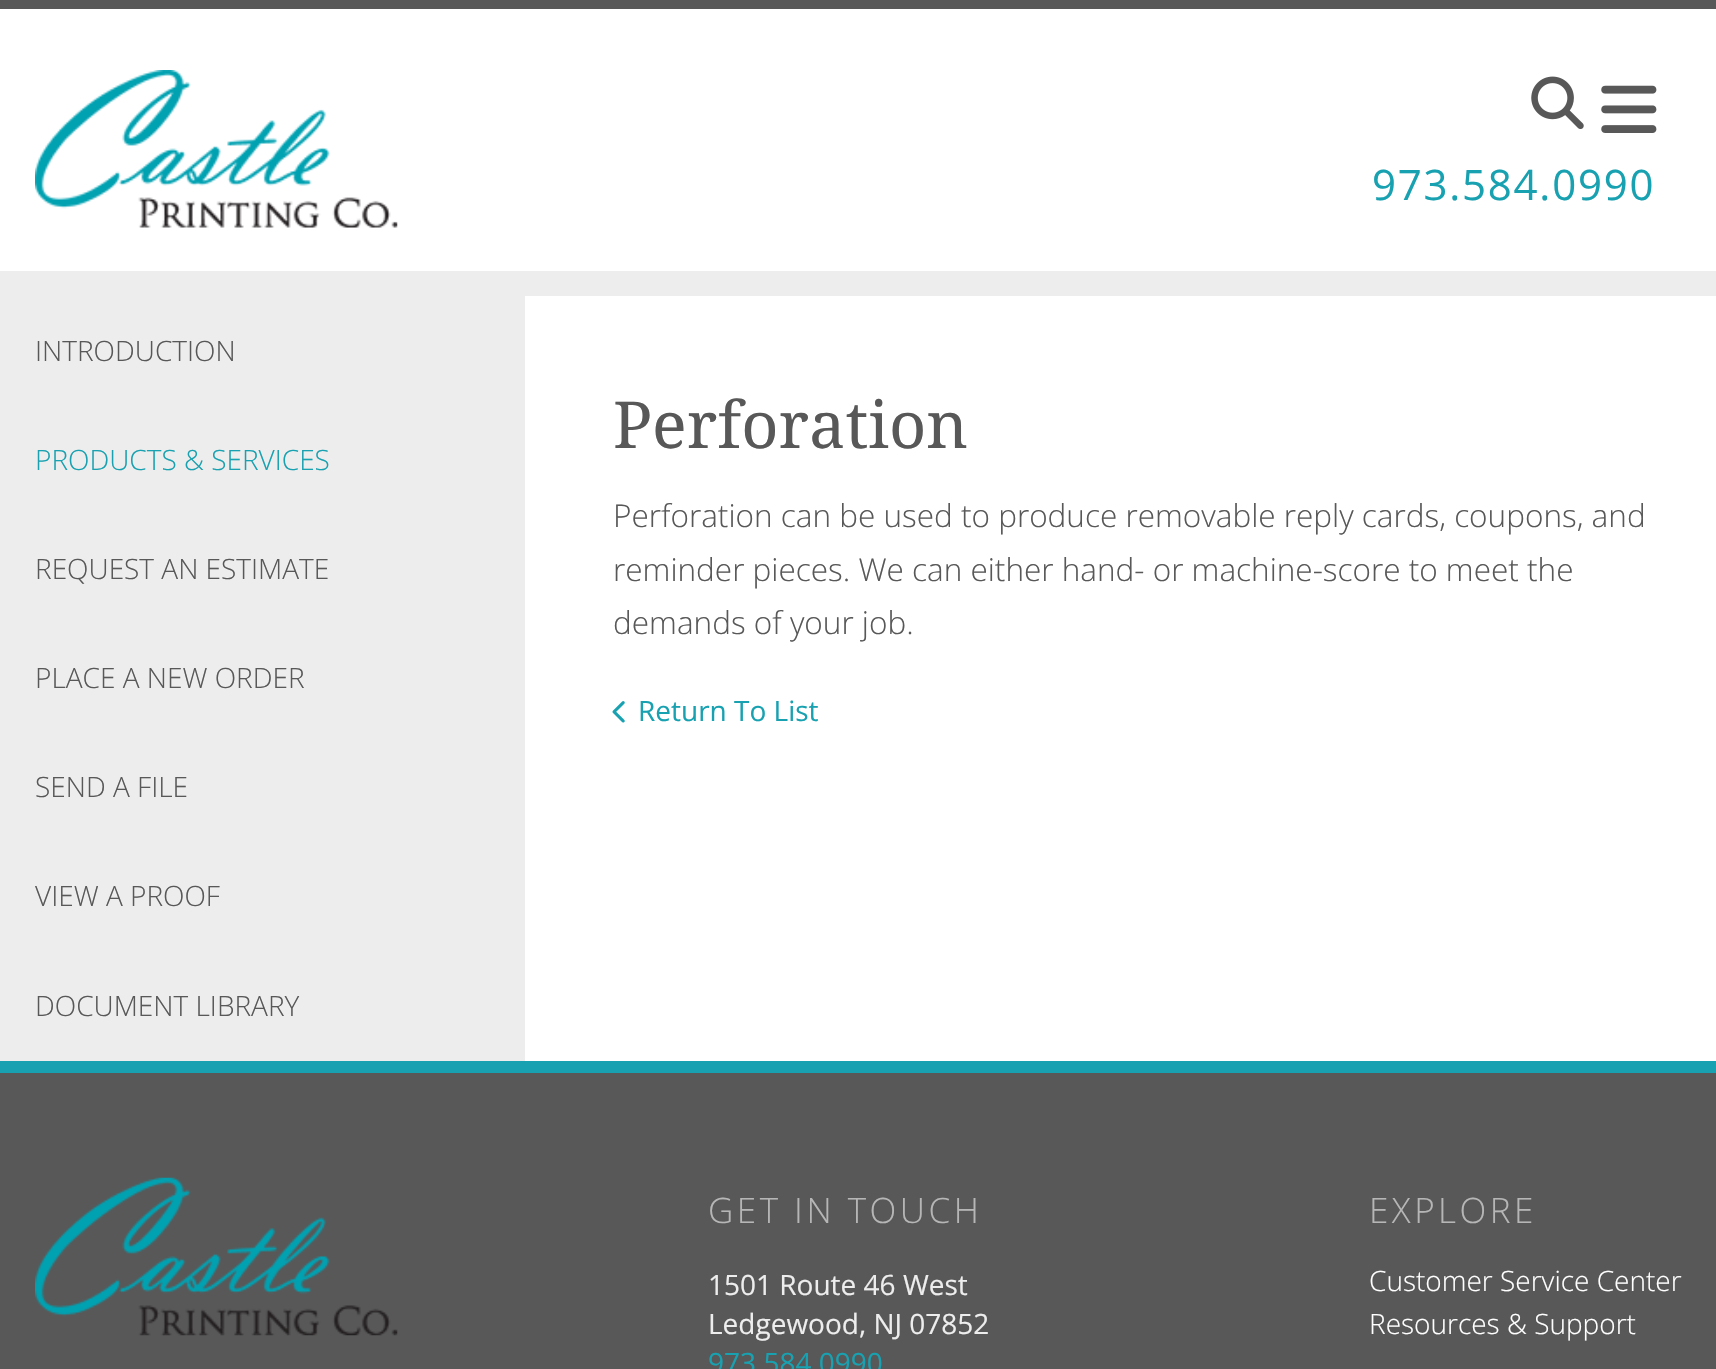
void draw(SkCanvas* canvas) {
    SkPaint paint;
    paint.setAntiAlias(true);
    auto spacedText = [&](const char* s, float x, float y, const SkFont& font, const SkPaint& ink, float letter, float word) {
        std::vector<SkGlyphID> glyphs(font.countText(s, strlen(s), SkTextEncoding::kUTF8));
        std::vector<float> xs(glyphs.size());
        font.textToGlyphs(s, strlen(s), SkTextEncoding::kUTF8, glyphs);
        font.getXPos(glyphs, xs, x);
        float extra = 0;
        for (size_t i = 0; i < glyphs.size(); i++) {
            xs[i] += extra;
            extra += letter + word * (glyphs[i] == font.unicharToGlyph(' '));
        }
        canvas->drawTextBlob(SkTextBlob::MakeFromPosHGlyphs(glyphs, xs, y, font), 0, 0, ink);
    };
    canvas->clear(0xFF585858);
    paint.setColor(0xFFFFFFFF);
    canvas->drawRect(SkRect::MakeXYWH(0, 9, 1716, 262), paint);
    canvas->drawImageRect(SkImages::DeferredFromEncodedData(SkData::MakeFromFileName("img1.png")), SkRect::MakeXYWH(35, 70, 363, 158), SkSamplingOptions());
    canvas->drawImageRect(SkImages::DeferredFromEncodedData(SkData::MakeFromFileName("img2.png")), SkRect::MakeXYWH(1531, 76, 53, 53), SkSamplingOptions());
    canvas->drawImageRect(SkImages::DeferredFromEncodedData(SkData::MakeFromFileName("img3.png")), SkRect::MakeXYWH(1601, 85, 56, 48), SkSamplingOptions());
    SkFont font1(fontMgr->matchFamilyStyle("Open Sans", SkFontStyle::Normal()), 42);
    font1.setSubpixel(true);
    paint.setColor(0xFF18A1B0);
    spacedText("973.584.0990", 1372, 200, font1, paint, 1.75f, 0);
    paint.setColor(0xFFEDEDED);
    canvas->drawRect(SkRect::MakeXYWH(0, 271, 1716, 25), paint);
    paint.setColor(0xFFFFFFFF);
    canvas->drawRect(SkRect::MakeXYWH(525, 296, 1191, 765), paint);
    paint.setColor(0xFFEDEDED);
    canvas->drawRect(SkRect::MakeXYWH(0, 296, 525, 765), paint);
    SkFont font2(fontMgr->matchFamilyStyle("Open Sans", SkFontStyle(300, SkFontStyle::kNormal_Width, SkFontStyle::kUpright_Slant)), 28);
    font2.setSubpixel(true);
    paint.setColor(0xFF585858);
    canvas->drawString("INTRODUCTION", 35, 361, font2, paint);
    paint.setColor(0xFF18A1B0);
    canvas->drawString("PRODUCTS & SERVICES", 35, 470, font2, paint);
    paint.setColor(0xFF585858);
    canvas->drawString("REQUEST AN ESTIMATE", 35, 579, font2, paint);
    canvas->drawString("PLACE A NEW ORDER", 35, 688, font2, paint);
    canvas->drawString("SEND A FILE", 35, 797, font2, paint);
    canvas->drawString("VIEW A PROOF", 35, 906, font2, paint);
    canvas->drawString("DOCUMENT LIBRARY", 35, 1016, font2, paint);
    SkFont font3(fontMgr->matchFamilyStyle("Noto Serif", SkFontStyle::Normal()), 64.75f);
    font3.setSubpixel(true);
    canvas->drawString("Perforation", 613, 448, font3, paint);
    SkFont font4(fontMgr->matchFamilyStyle("Open Sans", SkFontStyle(300, SkFontStyle::kNormal_Width, SkFontStyle::kUpright_Slant)), 31.5f);
    font4.setSubpixel(true);
    canvas->drawString("Perforation can be used to produce removable reply cards, coupons, and", 613, 527, font4, paint);
    canvas->drawString("reminder pieces. We can either hand- or machine-score to meet the", 613, 581, font4, paint);
    canvas->drawString("demands of your job.", 613, 634, font4, paint);
    canvas->drawImageRect(SkImages::DeferredFromEncodedData(SkData::MakeFromFileName("img4.png")), SkRect::MakeXYWH(612, 701, 13, 22), SkSamplingOptions());
    SkFont font5(fontMgr->matchFamilyStyle("Open Sans", SkFontStyle::Normal()), 28);
    font5.setSubpixel(true);
    paint.setColor(0xFF18A1B0);
    canvas->drawString("Return To List", 638, 721, font5, paint);
    canvas->drawRect(SkRect::MakeXYWH(0, 1061, 1716, 12), paint);
    canvas->drawImageRect(SkImages::DeferredFromEncodedData(SkData::MakeFromFileName("img5.png")), SkRect::MakeXYWH(35, 1177, 363, 159), SkSamplingOptions());
    SkFont font6(fontMgr->matchFamilyStyle("Open Sans", SkFontStyle(300, SkFontStyle::kNormal_Width, SkFontStyle::kUpright_Slant)), 35);
    font6.setSubpixel(true);
    paint.setColor(0xFFB6B6B6);
    spacedText("GET IN TOUCH", 708, 1223, font6, paint, 3.5f, 0);
    paint.setColor(0xFFEDEDED);
    canvas->drawString("1501 Route 46 West", 708, 1295, font5, paint);
    canvas->drawString("Ledgewood, NJ 07852", 708, 1334, font5, paint);
    paint.setColor(0xFF18A1B0);
    canvas->drawString("973.584.0990", 708, 1373, font5, paint);
    paint.setColor(0xFFB6B6B6);
    spacedText("EXPLORE", 1369, 1223, font6, paint, 3.5f, 0);
    paint.setColor(0xFFFFFFFF);
    canvas->drawString("Customer Service Center", 1369, 1291, font2, paint);
    canvas->drawString("Resources & Support", 1369, 1334, font2, paint);
}
